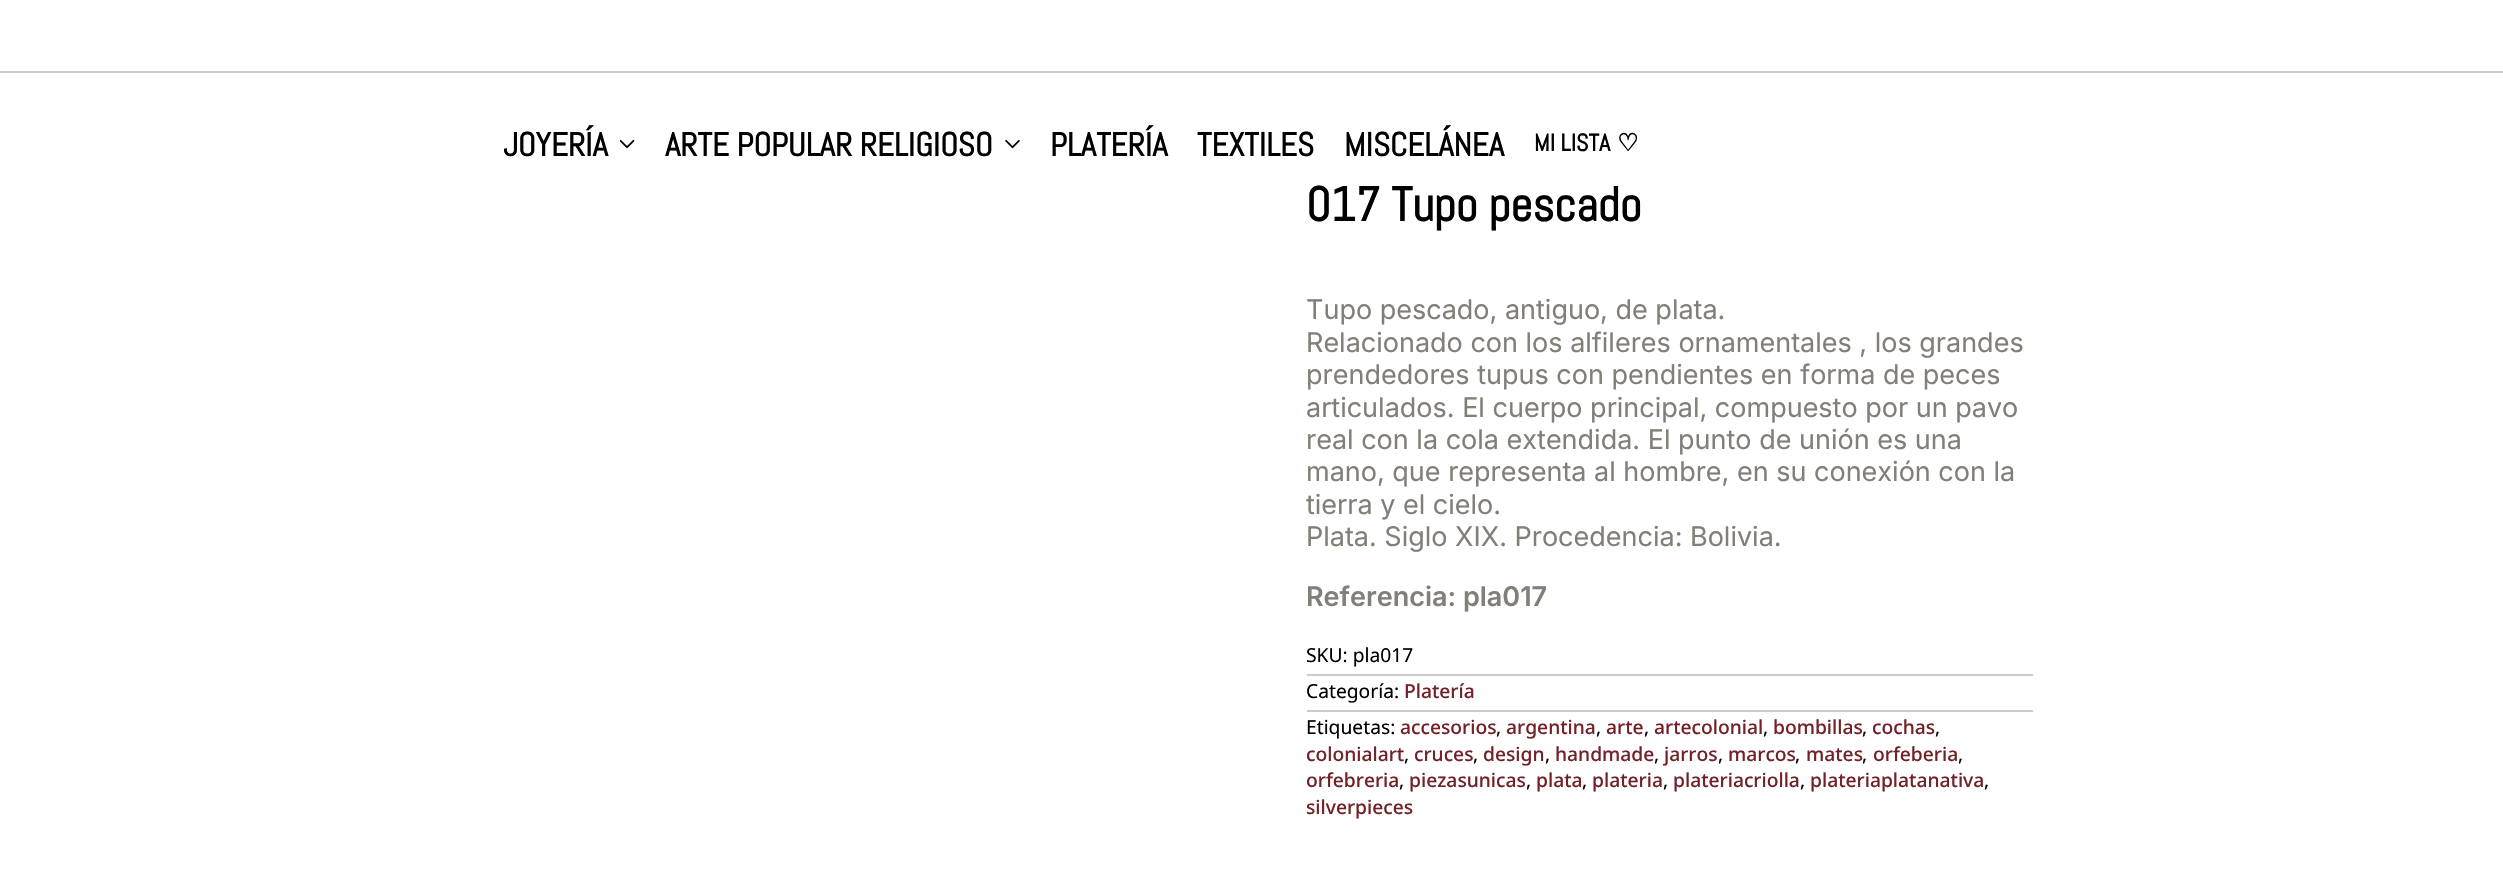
void draw(SkCanvas* canvas) {
    SkPaint paint;
    paint.setAntiAlias(true);
    canvas->clear(0xFFFFFFFF);
    paint.setColor(0xFFCCCCCC);
    canvas->drawRect(SkRect::MakeXYWH(0, 71, 2503, 2), paint);
    SkFont font1(fontMgr->matchFamilyStyle("Abel", SkFontStyle::Bold()), 33);
    font1.setSubpixel(true);
    paint.setColor(0xFF000000);
    canvas->drawString("JOYERÍA", 503, 156, font1, paint);
    canvas->drawImageRect(SkImages::DeferredFromEncodedData(SkData::MakeFromFileName("img1.png")), SkRect::MakeXYWH(620, 139, 15, 10), SkSamplingOptions());
    canvas->drawString("ARTE POPULAR RELIGIOSO", 665, 156, font1, paint);
    canvas->drawImageRect(SkImages::DeferredFromEncodedData(SkData::MakeFromFileName("img2.png")), SkRect::MakeXYWH(1005, 139, 15, 10), SkSamplingOptions());
    canvas->drawString("PLATERÍA", 1050, 156, font1, paint);
    canvas->drawString("TEXTILES", 1197, 156, font1, paint);
    canvas->drawString("MISCELÁNEA", 1344, 156, font1, paint);
    SkFont font2(fontMgr->matchFamilyStyle("Abel", SkFontStyle::Bold()), 24);
    font2.setSubpixel(true);
    canvas->drawString("MI LISTA", 1534, 151, font2, paint);
    SkFont font3(fontMgr->matchFamilyStyle("DejaVu Sans", SkFontStyle::Bold()), 24);
    font3.setSubpixel(true);
    canvas->drawString("♡", 1617, 151, font3, paint);
    SkFont font4(fontMgr->matchFamilyStyle("Abel", SkFontStyle::Bold()), 48);
    font4.setSubpixel(true);
    canvas->drawString("017 Tupo pescado", 1306, 221, font4, paint);
    SkFont font5(fontMgr->matchFamilyStyle("Inter", SkFontStyle::Normal()), 27);
    font5.setSubpixel(true);
    paint.setColor(0xFF827E78);
    canvas->drawString("Tupo pescado, antiguo, de plata.", 1306, 319, font5, paint);
    canvas->drawString("Relacionado con los alfileres ornamentales , los grandes", 1306, 352, font5, paint);
    canvas->drawString("prendedores tupus con pendientes en forma de peces", 1306, 384, font5, paint);
    canvas->drawString("articulados. El cuerpo principal, compuesto por un pavo", 1306, 417, font5, paint);
    canvas->drawString("real con la cola extendida. El punto de unión es una", 1306, 449, font5, paint);
    canvas->drawString("mano, que representa al hombre, en su conexión con la", 1306, 481, font5, paint);
    canvas->drawString("tierra y el cielo.", 1306, 514, font5, paint);
    canvas->drawString("Plata. Siglo XIX. Procedencia: Bolivia.", 1306, 546, font5, paint);
    SkFont font6(fontMgr->matchFamilyStyle("Inter", SkFontStyle(600, SkFontStyle::kNormal_Width, SkFontStyle::kUpright_Slant)), 27);
    font6.setSubpixel(true);
    canvas->drawString("Referencia: pla017", 1306, 606, font6, paint);
    SkFont font7(fontMgr->matchFamilyStyle("Noto Sans", SkFontStyle::Normal()), 19.25f);
    font7.setSubpixel(true);
    paint.setColor(0xFF000000);
    canvas->drawString("SKU: pla017", 1306, 662, font7, paint);
    paint.setColor(0xFFCCCCCC);
    canvas->drawRect(SkRect::MakeXYWH(1307, 674, 726, 2), paint);
    paint.setColor(0xFF000000);
    canvas->drawString("Categoría:", 1306, 698, font7, paint);
    SkFont font8(fontMgr->matchFamilyStyle("Noto Sans", SkFontStyle(500, SkFontStyle::kNormal_Width, SkFontStyle::kUpright_Slant)), 19.25f);
    font8.setSubpixel(true);
    paint.setColor(0xFF712127);
    canvas->drawString("Platería", 1404, 698, font8, paint);
    paint.setColor(0xFFCCCCCC);
    canvas->drawRect(SkRect::MakeXYWH(1307, 710, 726, 2), paint);
    paint.setColor(0xFF000000);
    canvas->drawString("Etiquetas:", 1306, 734, font7, paint);
    paint.setColor(0xFF712127);
    canvas->drawString("accesorios", 1400, 734, font8, paint);
    paint.setColor(0xFF000000);
    canvas->drawString(",", 1496, 734, font7, paint);
    paint.setColor(0xFF712127);
    canvas->drawString("argentina", 1506, 734, font8, paint);
    paint.setColor(0xFF000000);
    canvas->drawString(",", 1596, 734, font7, paint);
    paint.setColor(0xFF712127);
    canvas->drawString("arte", 1606, 734, font8, paint);
    paint.setColor(0xFF000000);
    canvas->drawString(",", 1644, 734, font7, paint);
    paint.setColor(0xFF712127);
    canvas->drawString("artecolonial", 1654, 734, font8, paint);
    paint.setColor(0xFF000000);
    canvas->drawString(",", 1763, 734, font7, paint);
    paint.setColor(0xFF712127);
    canvas->drawString("bombillas", 1773, 734, font8, paint);
    paint.setColor(0xFF000000);
    canvas->drawString(",", 1862, 734, font7, paint);
    paint.setColor(0xFF712127);
    canvas->drawString("cochas", 1872, 734, font8, paint);
    paint.setColor(0xFF000000);
    canvas->drawString(",", 1935, 734, font7, paint);
    paint.setColor(0xFF712127);
    canvas->drawString("colonialart", 1306, 761, font8, paint);
    paint.setColor(0xFF000000);
    canvas->drawString(",", 1404, 761, font7, paint);
    paint.setColor(0xFF712127);
    canvas->drawString("cruces", 1414, 761, font8, paint);
    paint.setColor(0xFF000000);
    canvas->drawString(",", 1473, 761, font7, paint);
    paint.setColor(0xFF712127);
    canvas->drawString("design", 1483, 761, font8, paint);
    paint.setColor(0xFF000000);
    canvas->drawString(",", 1545, 761, font7, paint);
    paint.setColor(0xFF712127);
    canvas->drawString("handmade", 1555, 761, font8, paint);
    paint.setColor(0xFF000000);
    canvas->drawString(",", 1654, 761, font7, paint);
    paint.setColor(0xFF712127);
    canvas->drawString("jarros", 1664, 761, font8, paint);
    paint.setColor(0xFF000000);
    canvas->drawString(",", 1718, 761, font7, paint);
    paint.setColor(0xFF712127);
    canvas->drawString("marcos", 1728, 761, font8, paint);
    paint.setColor(0xFF000000);
    canvas->drawString(",", 1795, 761, font7, paint);
    paint.setColor(0xFF712127);
    canvas->drawString("mates", 1806, 761, font8, paint);
    paint.setColor(0xFF000000);
    canvas->drawString(",", 1862, 761, font7, paint);
    paint.setColor(0xFF712127);
    canvas->drawString("orfeberia", 1873, 761, font8, paint);
    paint.setColor(0xFF000000);
    canvas->drawString(",", 1958, 761, font7, paint);
    paint.setColor(0xFF712127);
    canvas->drawString("orfebreria", 1306, 787, font8, paint);
    paint.setColor(0xFF000000);
    canvas->drawString(",", 1399, 787, font7, paint);
    paint.setColor(0xFF712127);
    canvas->drawString("piezasunicas", 1409, 787, font8, paint);
    paint.setColor(0xFF000000);
    canvas->drawString(",", 1526, 787, font7, paint);
    paint.setColor(0xFF712127);
    canvas->drawString("plata", 1536, 787, font8, paint);
    paint.setColor(0xFF000000);
    canvas->drawString(",", 1582, 787, font7, paint);
    paint.setColor(0xFF712127);
    canvas->drawString("plateria", 1592, 787, font8, paint);
    paint.setColor(0xFF000000);
    canvas->drawString(",", 1663, 787, font7, paint);
    paint.setColor(0xFF712127);
    canvas->drawString("plateriacriolla", 1673, 787, font8, paint);
    paint.setColor(0xFF000000);
    canvas->drawString(",", 1800, 787, font7, paint);
    paint.setColor(0xFF712127);
    canvas->drawString("plateriaplatanativa", 1810, 787, font8, paint);
    paint.setColor(0xFF000000);
    canvas->drawString(",", 1984, 787, font7, paint);
    paint.setColor(0xFF712127);
    canvas->drawString("silverpieces", 1306, 814, font8, paint);
}
